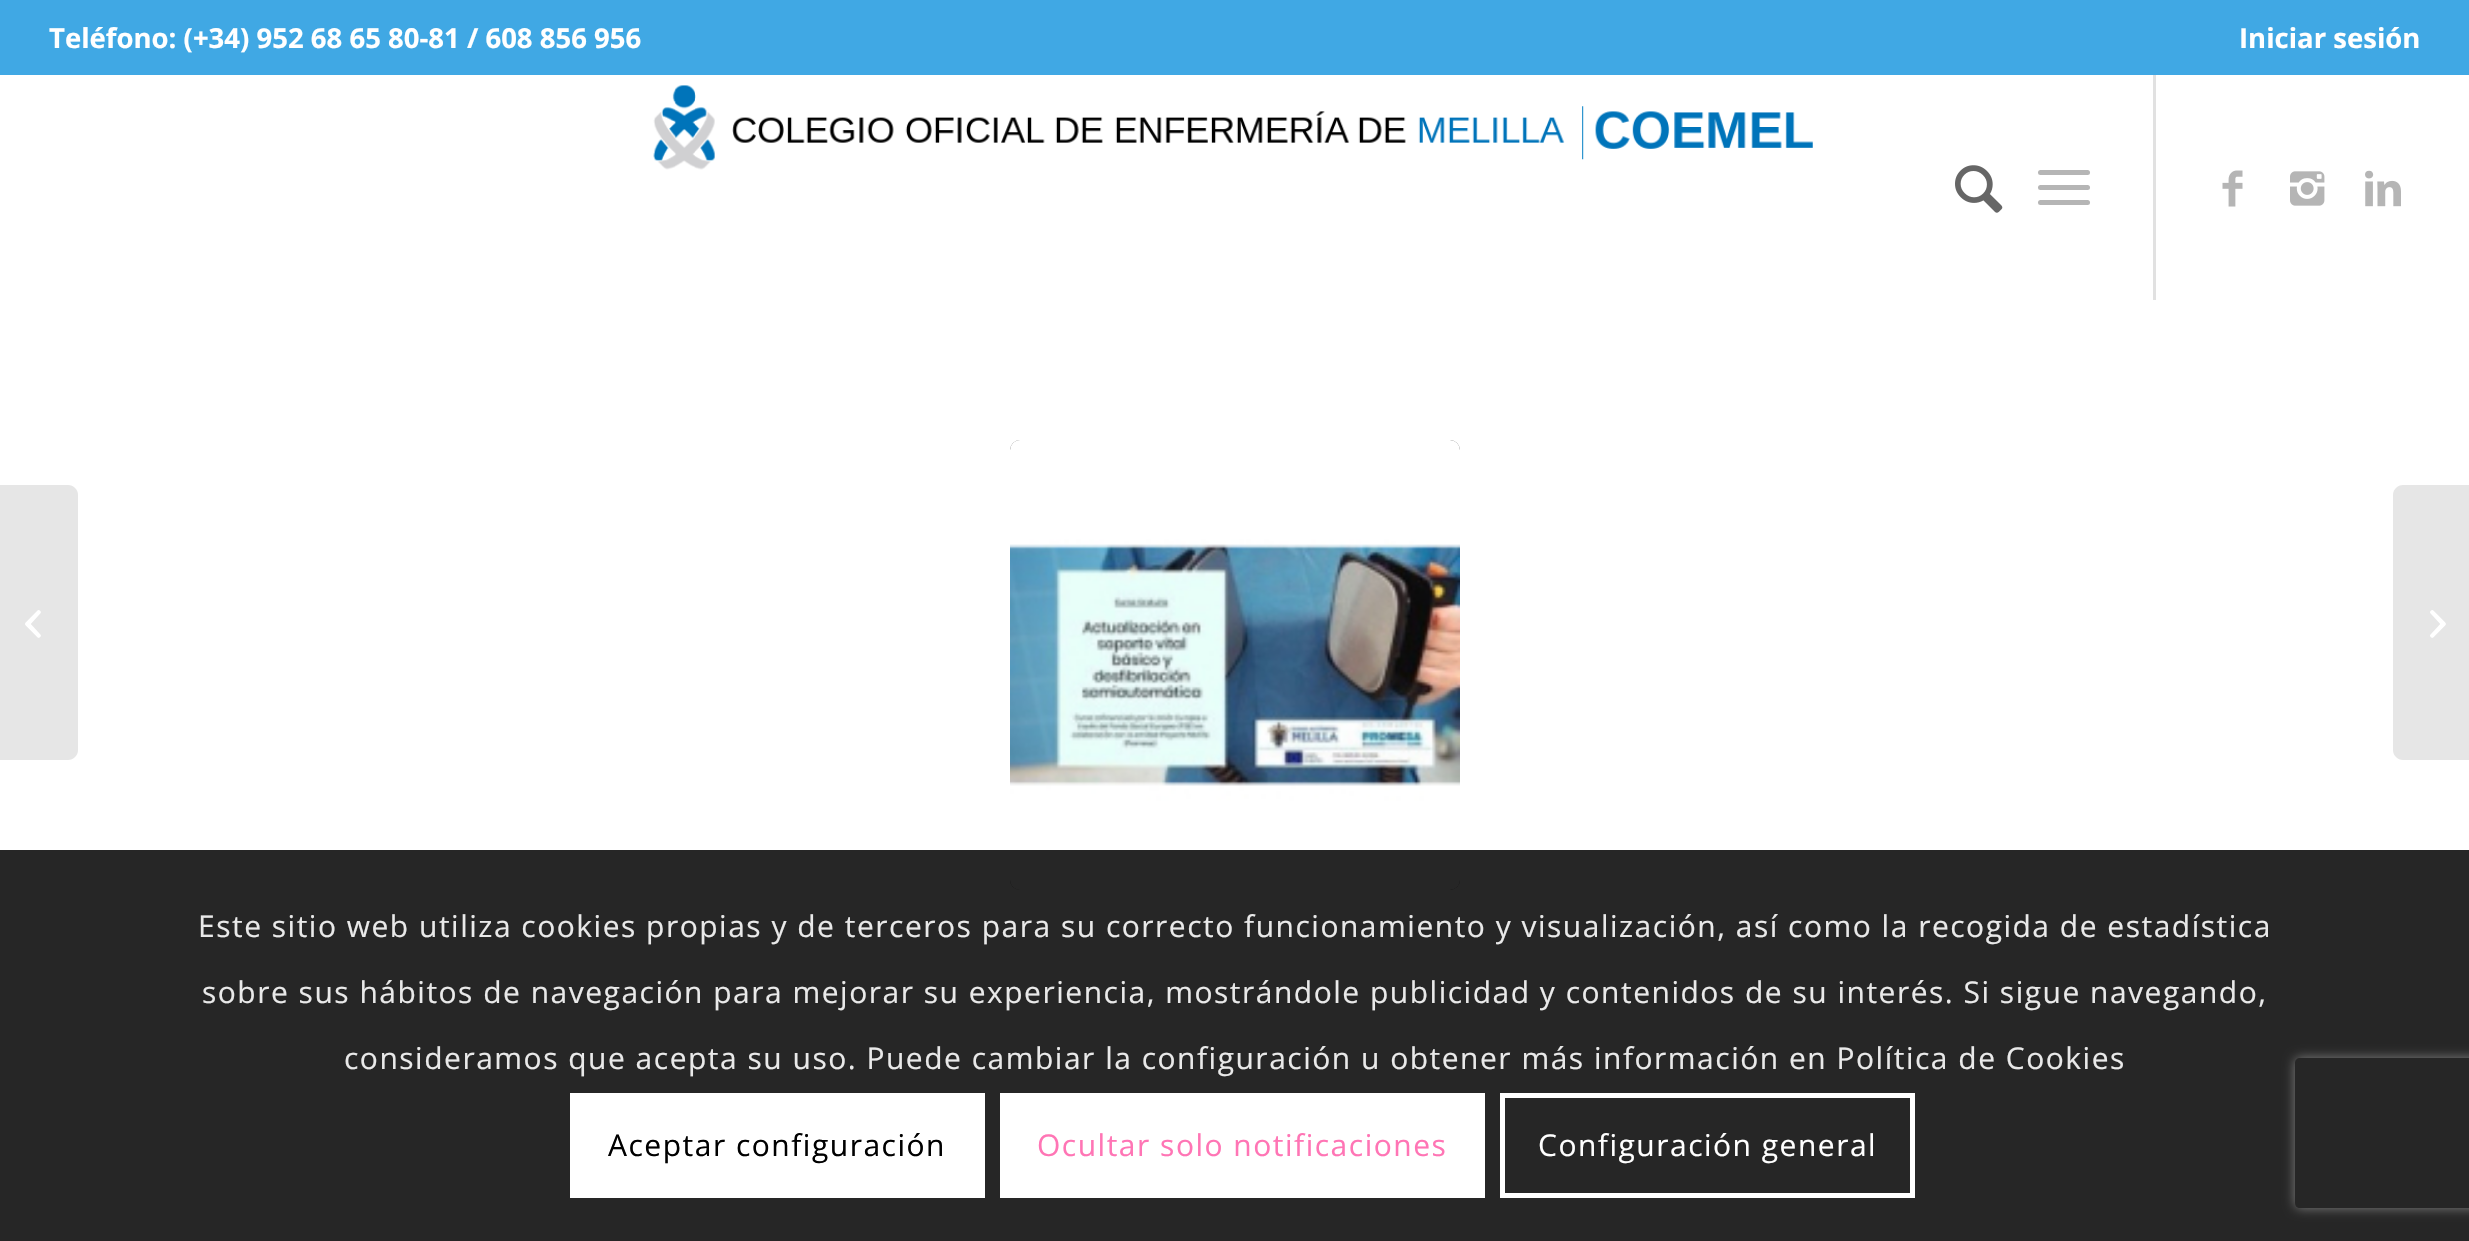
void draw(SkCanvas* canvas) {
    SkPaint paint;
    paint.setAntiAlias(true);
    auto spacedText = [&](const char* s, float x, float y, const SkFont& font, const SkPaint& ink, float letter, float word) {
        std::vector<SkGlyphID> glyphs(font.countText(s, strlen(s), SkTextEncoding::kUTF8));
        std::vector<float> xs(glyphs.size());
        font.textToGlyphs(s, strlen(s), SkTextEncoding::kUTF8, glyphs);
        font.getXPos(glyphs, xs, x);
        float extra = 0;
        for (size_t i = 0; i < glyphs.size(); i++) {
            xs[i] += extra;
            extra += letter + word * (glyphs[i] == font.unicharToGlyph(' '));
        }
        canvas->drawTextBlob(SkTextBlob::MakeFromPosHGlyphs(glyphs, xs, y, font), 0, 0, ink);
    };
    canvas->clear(0xFFFFFFFF);
    paint.setColor(0xFF40A8E4);
    canvas->drawRect(SkRect::MakeXYWH(0, 0, 2469, 75), paint);
    SkFont font1(fontMgr->matchFamilyStyle("Open Sans", SkFontStyle::Bold()), 27.5f);
    font1.setSubpixel(true);
    paint.setColor(0xFFFFFFFF);
    canvas->drawString("Teléfono: (+34) 952 68 65 80-81 / 608 856 956", 49, 48, font1, paint);
    canvas->drawString("Iniciar sesión", 2239, 48, font1, paint);
    canvas->drawImageRect(SkImages::DeferredFromEncodedData(SkData::MakeFromFileName("img1.png")), SkRect::MakeXYWH(653, 85, 1160, 85), SkSamplingOptions());
    paint.setColor(0xFFE1E1E1);
    canvas->drawRect(SkRect::MakeXYWH(2153, 75, 3, 225), paint);
    canvas->drawImageRect(SkImages::DeferredFromEncodedData(SkData::MakeFromFileName("img2.png")), SkRect::MakeXYWH(1955, 165, 48, 48), SkSamplingOptions());
    paint.setColor(0xFFB5B5B5);
    canvas->drawRoundRect(SkRect::MakeXYWH(2038, 185, 52, 5), 2.5f, 2.5f, paint);
    canvas->drawRoundRect(SkRect::MakeXYWH(2038, 170, 52, 5), 2.5f, 2.5f, paint);
    canvas->drawRoundRect(SkRect::MakeXYWH(2038, 200, 52, 5), 2.5f, 2.5f, paint);
    canvas->drawImageRect(SkImages::DeferredFromEncodedData(SkData::MakeFromFileName("img3.png")), SkRect::MakeXYWH(2222, 170, 21, 37), SkSamplingOptions());
    canvas->drawImageRect(SkImages::DeferredFromEncodedData(SkData::MakeFromFileName("img4.png")), SkRect::MakeXYWH(2290, 171, 35, 35), SkSamplingOptions());
    canvas->drawImageRect(SkImages::DeferredFromEncodedData(SkData::MakeFromFileName("img5.png")), SkRect::MakeXYWH(2365, 170, 36, 37), SkSamplingOptions());
    paint.setColor(0xFFE6E6E6);
    canvas->drawPath(SkPathBuilder().moveTo(0, 485).lineTo(68, 485).cubicTo(73.5f, 485, 78, 489.5f, 78, 495).lineTo(78, 750).cubicTo(78, 755.5f, 73.5f, 760, 68, 760).lineTo(0, 760).close().detach(), paint);
    canvas->drawImageRect(SkImages::DeferredFromEncodedData(SkData::MakeFromFileName("img6.png")), SkRect::MakeXYWH(25, 610, 16, 28), SkSamplingOptions());
    paint.setColor(0xFF919191);
    canvas->drawRoundRect(SkRect::MakeXYWH(1010, 440, 450, 450), 10, 10, paint);
    canvas->drawImageRect(SkImages::DeferredFromEncodedData(SkData::MakeFromFileName("img7.png")), SkRect::MakeXYWH(1010, 440, 450, 450), SkSamplingOptions());
    paint.setColor(0xFFE6E6E6);
    canvas->drawPath(SkPathBuilder().moveTo(2403, 485).lineTo(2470, 485).lineTo(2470, 760).lineTo(2403, 760).cubicTo(2397.5f, 760, 2393, 755.5f, 2393, 750).lineTo(2393, 495).cubicTo(2393, 489.5f, 2397.5f, 485, 2403, 485).close().detach(), paint);
    canvas->drawImageRect(SkImages::DeferredFromEncodedData(SkData::MakeFromFileName("img8.png")), SkRect::MakeXYWH(2430, 610, 16, 28), SkSamplingOptions());
    paint.setColor(0xD9000000);
    canvas->drawRect(SkRect::MakeXYWH(0, 850, 2469, 391), paint);
    SkFont font2(fontMgr->matchFamilyStyle("Open Sans", SkFontStyle::Normal()), 30);
    font2.setSubpixel(true);
    paint.setColor(0xFFE9E9E9);
    spacedText("Este sitio web utiliza cookies propias y de terceros para su correcto funcionamiento y visualización, así como la recogida de estadística", 198, 937, font2, paint, 1.5f, 0);
    spacedText("sobre sus hábitos de navegación para mejorar su experiencia, mostrándole publicidad y contenidos de su interés. Si sigue navegando,", 202, 1003, font2, paint, 1.5f, 0);
    spacedText("consideramos que acepta su uso. Puede cambiar la configuración u obtener más información en Política de Cookies", 344, 1069, font2, paint, 1.5f, 0);
    paint.setColor(0xFFFFFFFF);
    canvas->drawRect(SkRect::MakeXYWH(570, 1093, 415, 105), paint);
    paint.setColor(0xFF000000);
    spacedText("Aceptar configuración", 608, 1156, font2, paint, 1.5f, 0);
    paint.setColor(0xFFFFFFFF);
    canvas->drawRect(SkRect::MakeXYWH(1000, 1093, 485, 105), paint);
    paint.setColor(0xFFFF75B5);
    spacedText("Ocultar solo notificaciones", 1037, 1156, font2, paint, 1.5f, 0);
    paint.setStyle(SkPaint::kStroke_Style);
    paint.setStrokeWidth(5);
    paint.setColor(0xFFFFFFFF);
    canvas->drawRect(SkRect::MakeXYWH(1502.5f, 1095.5f, 410, 100), paint);
    paint.setStyle(SkPaint::kFill_Style);
    spacedText("Configuración general", 1538, 1156, font2, paint, 1.5f, 0);
    canvas->save();
    canvas->clipPath(SkPathBuilder(SkPathFillType::kEvenOdd).moveTo(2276, 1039).lineTo(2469, 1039).lineTo(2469, 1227).lineTo(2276, 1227).close().moveTo(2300, 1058).lineTo(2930, 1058).cubicTo(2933, 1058, 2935, 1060, 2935, 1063).lineTo(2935, 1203).cubicTo(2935, 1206, 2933, 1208, 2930, 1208).lineTo(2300, 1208).cubicTo(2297, 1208, 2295, 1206, 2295, 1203).lineTo(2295, 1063).cubicTo(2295, 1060, 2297, 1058, 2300, 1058).close().detach(), true);
    paint.setColor(0xFF808080);
    paint.setMaskFilter(SkMaskFilter::MakeBlur(kNormal_SkBlurStyle, 6));
    canvas->drawRoundRect(SkRect::MakeXYWH(2295, 1058, 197, 150), 5, 5, paint);
    paint.setMaskFilter(nullptr);
    canvas->restore();
}
